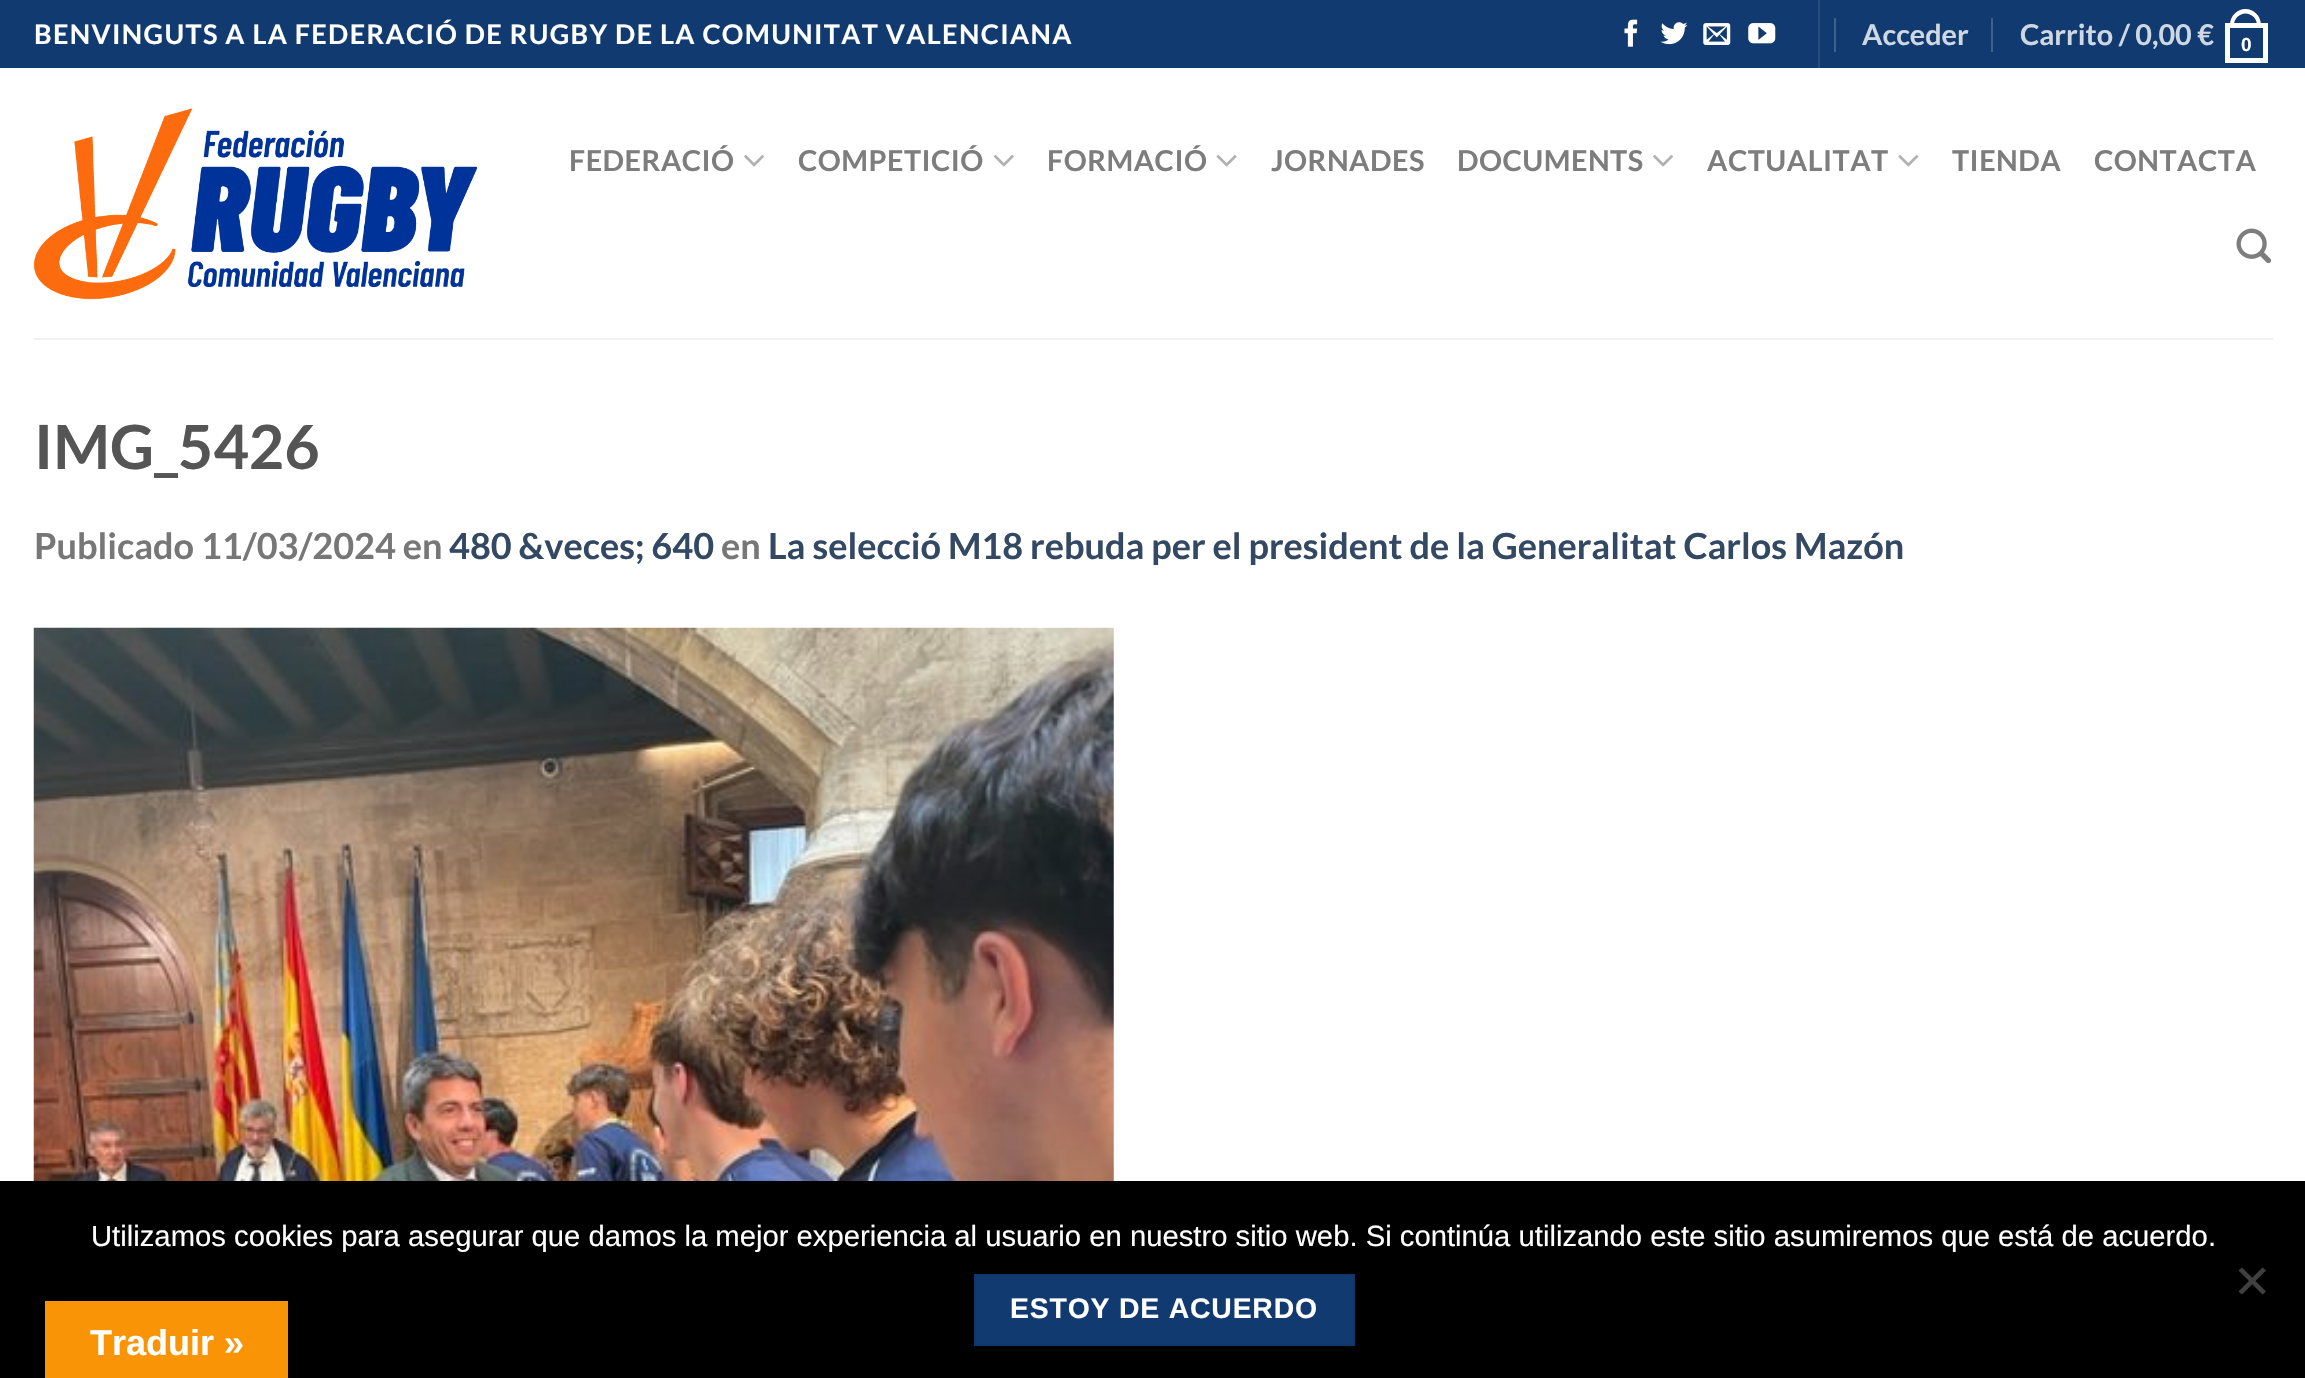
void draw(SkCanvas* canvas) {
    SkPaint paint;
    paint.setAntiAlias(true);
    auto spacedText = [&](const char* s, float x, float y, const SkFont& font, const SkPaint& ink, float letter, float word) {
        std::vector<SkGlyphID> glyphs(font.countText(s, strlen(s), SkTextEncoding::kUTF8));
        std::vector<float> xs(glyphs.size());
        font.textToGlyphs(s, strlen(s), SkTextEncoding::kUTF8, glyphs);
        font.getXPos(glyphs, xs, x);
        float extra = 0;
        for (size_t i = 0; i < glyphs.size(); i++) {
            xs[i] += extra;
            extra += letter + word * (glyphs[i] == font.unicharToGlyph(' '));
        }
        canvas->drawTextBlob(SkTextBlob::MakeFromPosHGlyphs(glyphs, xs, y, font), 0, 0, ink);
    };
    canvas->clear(0xFFFFFFFF);
    paint.setColor(0xFF113A70);
    canvas->drawRect(SkRect::MakeXYWH(0, 0, 2305, 68), paint);
    SkFont font1(fontMgr->matchFamilyStyle("Lato", SkFontStyle::Bold()), 27);
    font1.setSubpixel(true);
    paint.setColor(0xFFFFFFFF);
    spacedText("BENVINGUTS A LA FEDERACIÓ DE RUGBY DE LA COMUNITAT VALENCIANA", 34, 44, font1, paint, 1.35f, 0);
    canvas->drawImageRect(SkImages::DeferredFromEncodedData(SkData::MakeFromFileName("img1.png")), SkRect::MakeXYWH(1624, 19, 14, 28), SkSamplingOptions());
    canvas->drawImageRect(SkImages::DeferredFromEncodedData(SkData::MakeFromFileName("img2.png")), SkRect::MakeXYWH(1660, 22, 28, 23), SkSamplingOptions());
    canvas->drawImageRect(SkImages::DeferredFromEncodedData(SkData::MakeFromFileName("img3.png")), SkRect::MakeXYWH(1703, 23, 28, 22), SkSamplingOptions());
    canvas->drawImageRect(SkImages::DeferredFromEncodedData(SkData::MakeFromFileName("img4.png")), SkRect::MakeXYWH(1748, 23, 28, 21), SkSamplingOptions());
    paint.setColor(0xFF294E7E);
    canvas->drawRect(SkRect::MakeXYWH(1818, 0, 2, 68), paint);
    paint.setColor(0xFF41618D);
    canvas->drawRect(SkRect::MakeXYWH(1834, 18, 2, 34), paint);
    SkFont font2(fontMgr->matchFamilyStyle("Lato", SkFontStyle::Bold()), 28.75f);
    font2.setSubpixel(true);
    paint.setColor(0xFFCFD8E2);
    canvas->drawString("Acceder", 1862, 45, font2, paint);
    paint.setColor(0xFF41618D);
    canvas->drawRect(SkRect::MakeXYWH(1991, 18, 2, 34), paint);
    paint.setColor(0xFFCFD8E2);
    canvas->drawString("Carrito / 0,00 €", 2020, 45, font2, paint);
    paint.setStyle(SkPaint::kStroke_Style);
    paint.setStrokeWidth(5);
    paint.setColor(0xFFFFFFFF);
    canvas->drawRect(SkRect::MakeXYWH(2227.5f, 25.5f, 38, 35), paint);
    paint.setStyle(SkPaint::kFill_Style);
    canvas->drawPath(SkPathBuilder(SkPathFillType::kEvenOdd).moveTo(2245.5f, 9).cubicTo(2254, 9, 2261, 16, 2261, 25).lineTo(2261, 27).lineTo(2230, 27).lineTo(2230, 25).cubicTo(2230, 16, 2237, 9, 2245.5f, 9).close().moveTo(2245.5f, 13.5f).cubicTo(2251.5f, 13.5f, 2257, 18.5f, 2257, 25).lineTo(2257, 27).lineTo(2234, 27).lineTo(2234, 25).cubicTo(2234, 18.5f, 2239.5f, 13.5f, 2245.5f, 13.5f).close().detach(), paint);
    SkFont font3(fontMgr->matchFamilyStyle("Liberation Sans", SkFontStyle::Bold()), 19);
    font3.setSubpixel(true);
    canvas->drawString("0", 2241, 51, font3, paint);
    canvas->drawImageRect(SkImages::DeferredFromEncodedData(SkData::MakeFromFileName("img5.png")), SkRect::MakeXYWH(33, 108, 444, 192), SkSamplingOptions());
    paint.setColor(0xFF7D7D7D);
    spacedText("FEDERACIÓ", 569, 171, font2, paint, 0.5f, 0);
    canvas->drawImageRect(SkImages::DeferredFromEncodedData(SkData::MakeFromFileName("img6.png")), SkRect::MakeXYWH(744, 155, 20, 12), SkSamplingOptions());
    spacedText("COMPETICIÓ", 798, 171, font2, paint, 0.5f, 0);
    canvas->drawImageRect(SkImages::DeferredFromEncodedData(SkData::MakeFromFileName("img7.png")), SkRect::MakeXYWH(993, 155, 21, 12), SkSamplingOptions());
    spacedText("FORMACIÓ", 1047, 171, font2, paint, 0.5f, 0);
    canvas->drawImageRect(SkImages::DeferredFromEncodedData(SkData::MakeFromFileName("img8.png")), SkRect::MakeXYWH(1216, 155, 21, 12), SkSamplingOptions());
    spacedText("JORNADES", 1271, 171, font2, paint, 0.5f, 0);
    spacedText("DOCUMENTS", 1457, 171, font2, paint, 0.5f, 0);
    canvas->drawImageRect(SkImages::DeferredFromEncodedData(SkData::MakeFromFileName("img6.png")), SkRect::MakeXYWH(1653, 155, 20, 12), SkSamplingOptions());
    spacedText("ACTUALITAT", 1707, 171, font2, paint, 0.5f, 0);
    canvas->drawImageRect(SkImages::DeferredFromEncodedData(SkData::MakeFromFileName("img9.png")), SkRect::MakeXYWH(1898, 155, 21, 12), SkSamplingOptions());
    spacedText("TIENDA", 1952, 171, font2, paint, 0.5f, 0);
    spacedText("CONTACTA", 2094, 171, font2, paint, 0.5f, 0);
    canvas->drawImageRect(SkImages::DeferredFromEncodedData(SkData::MakeFromFileName("img10.png")), SkRect::MakeXYWH(2236, 228, 35, 36), SkSamplingOptions());
    paint.setColor(0xFFF1F1F1);
    canvas->drawRect(SkRect::MakeXYWH(34, 338, 2239, 2), paint);
    SkFont font4(fontMgr->matchFamilyStyle("Lato", SkFontStyle::Bold()), 61);
    font4.setSubpixel(true);
    paint.setColor(0xFF555555);
    canvas->drawString("IMG_5426", 34, 469, font4, paint);
    SkFont font5(fontMgr->matchFamilyStyle("Lato", SkFontStyle::Bold()), 36);
    font5.setSubpixel(true);
    paint.setColor(0xFF777777);
    canvas->drawString("Publicado 11/03/2024 en", 34, 559, font5, paint);
    paint.setColor(0xFF334862);
    canvas->drawString("480 &veces; 640", 449, 559, font5, paint);
    paint.setColor(0xFF777777);
    canvas->drawString("en", 721, 559, font5, paint);
    paint.setColor(0xFF334862);
    canvas->drawString("La selecció M18 rebuda per el president de la Generalitat Carlos Mazón", 768, 559, font5, paint);
    canvas->drawImageRect(SkImages::DeferredFromEncodedData(SkData::MakeFromFileName("img11.png")), SkRect::MakeXYWH(33, 627, 1081, 554), SkSamplingOptions());
    paint.setColor(0xFF000000);
    canvas->drawRect(SkRect::MakeXYWH(0, 1181, 2305, 197), paint);
    SkFont font6(fontMgr->matchFamilyStyle("Liberation Sans", SkFontStyle::Normal()), 29.25f);
    font6.setSubpixel(true);
    paint.setColor(0xFFFFFFFF);
    canvas->drawString("Utilizamos cookies para asegurar que damos la mejor experiencia al usuario en nuestro sitio web. Si continúa utilizando este sitio asumiremos que está de acuerdo.", 91, 1246, font6, paint);
    paint.setColor(0xFF404040);
    canvas->drawPath(SkPathBuilder().moveTo(2262.5f, 1267.5f).lineTo(2266, 1270.5f).lineTo(2242, 1294.5f).lineTo(2238.5f, 1291.5f).close().detach(), paint);
    canvas->drawPath(SkPathBuilder().moveTo(2238.5f, 1270.5f).lineTo(2242, 1267.5f).lineTo(2266, 1291.5f).lineTo(2262.5f, 1294.5f).close().detach(), paint);
    paint.setColor(0xFF113A70);
    canvas->drawRect(SkRect::MakeXYWH(975, 1275, 379, 70), paint);
    paint.setStyle(SkPaint::kStroke_Style);
    paint.setStrokeWidth(2);
    paint.setColor(0xFF10376A);
    canvas->drawRect(SkRect::MakeXYWH(975, 1275, 379, 70), paint);
    SkFont font7(fontMgr->matchFamilyStyle("Liberation Sans", SkFontStyle::Bold()), 28.4f);
    font7.setSubpixel(true);
    paint.setStyle(SkPaint::kFill_Style);
    paint.setColor(0xFFFFFFFF);
    spacedText("ESTOY DE ACUERDO", 1010, 1318, font7, paint, 0.8f, 0);
    paint.setColor(0xFFF89406);
    canvas->drawRect(SkRect::MakeXYWH(45, 1301, 243, 77), paint);
    SkFont font8(fontMgr->matchFamilyStyle("Liberation Sans", SkFontStyle::Bold()), 36);
    font8.setSubpixel(true);
    paint.setColor(0xFFFFFFFF);
    canvas->drawString("Traduir »", 90, 1355, font8, paint);
}
